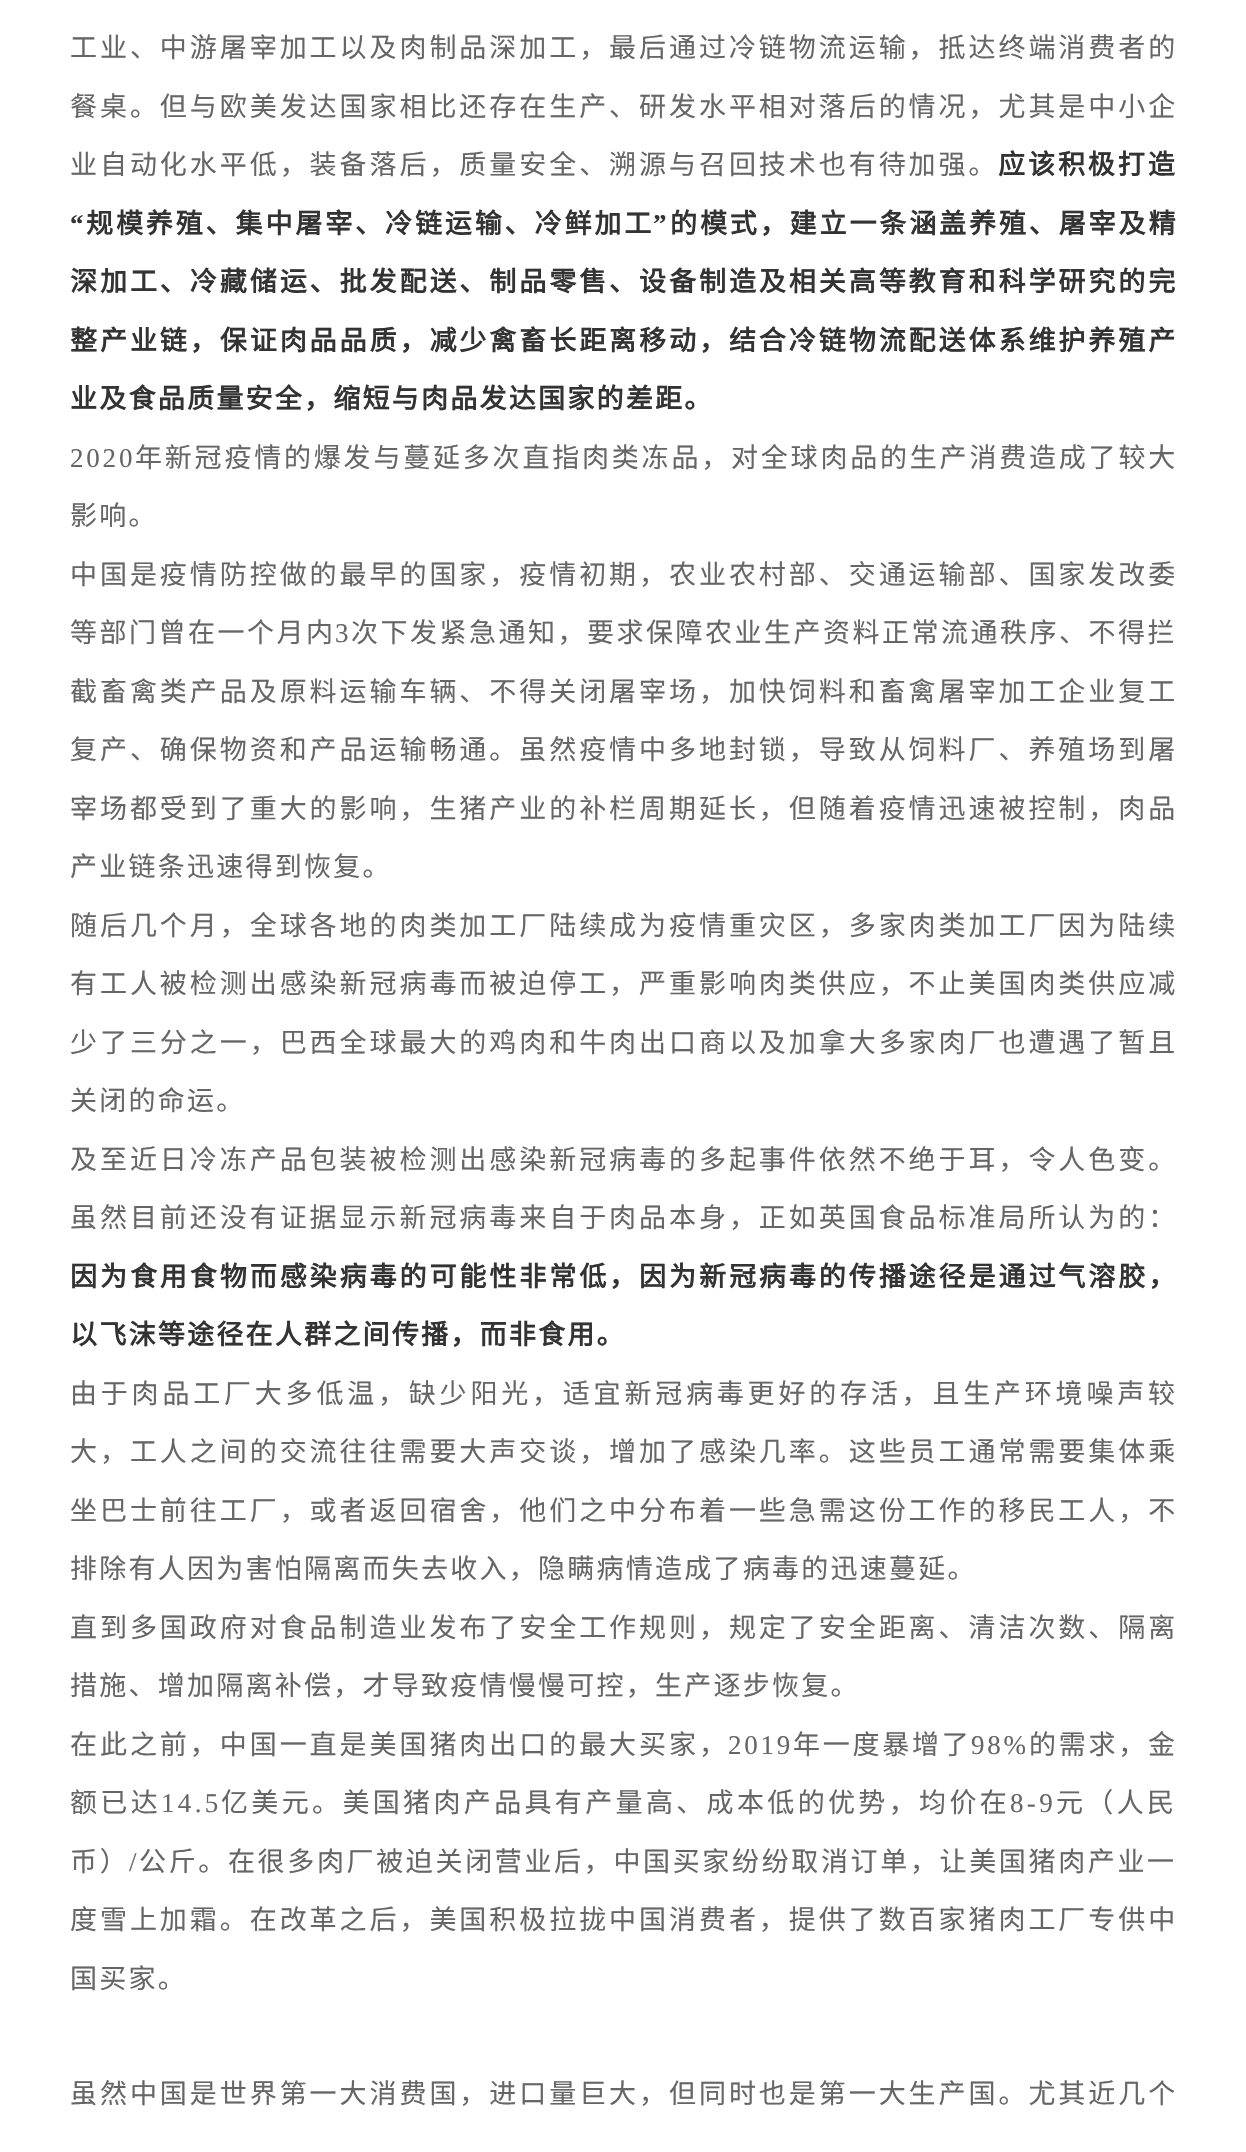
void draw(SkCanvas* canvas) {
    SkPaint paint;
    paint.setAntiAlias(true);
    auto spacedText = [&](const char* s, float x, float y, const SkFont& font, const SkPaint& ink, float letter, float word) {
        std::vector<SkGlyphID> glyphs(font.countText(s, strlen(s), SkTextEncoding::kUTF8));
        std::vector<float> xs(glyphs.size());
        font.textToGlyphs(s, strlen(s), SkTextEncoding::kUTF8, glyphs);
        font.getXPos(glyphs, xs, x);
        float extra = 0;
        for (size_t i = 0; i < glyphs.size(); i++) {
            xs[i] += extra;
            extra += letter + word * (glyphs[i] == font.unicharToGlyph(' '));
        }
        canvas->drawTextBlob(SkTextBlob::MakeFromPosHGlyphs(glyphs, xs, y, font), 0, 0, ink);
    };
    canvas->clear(0xFFFFFFFF);
    SkFont font1(fontMgr->matchFamilyStyle("Noto Sans CJK SC", SkFontStyle::Normal()), 27);
    font1.setSubpixel(true);
    paint.setColor(0xFF666666);
    spacedText("工业、中游屠宰加工以及肉制品深加工，最后通过冷链物流运输，抵达终端消费者的", 70, 57, font1, paint, 2.95f, 0);
    spacedText("餐桌。但与欧美发达国家相比还存在生产、研发水平相对落后的情况，尤其是中小企", 70, 116, font1, paint, 2.95f, 0);
    spacedText("业自动化水平低，装备落后，质量安全、溯源与召回技术也有待加强。", 70, 174, font1, paint, 2.95f, 0);
    SkFont font2(fontMgr->matchFamilyStyle("Noto Sans CJK SC", SkFontStyle::Bold()), 27);
    font2.setSubpixel(true);
    paint.setColor(0xFF333333);
    spacedText("应该积极打造", 998, 174, font2, paint, 2.95f, 0);
    SkFont font3(fontMgr->matchFamilyStyle("Liberation Serif", SkFontStyle::Bold()), 27);
    font3.setSubpixel(true);
    spacedText("“", 70, 233, font3, paint, 2.9f, 0);
    spacedText("规模养殖、集中屠宰、冷链运输、冷鲜加工", 86, 233, font2, paint, 2.9f, 0);
    spacedText("”", 653, 233, font3, paint, 2.9f, 0);
    spacedText("的模式，建立一条涵盖养殖、屠宰及精", 670, 233, font2, paint, 2.9f, 0);
    spacedText("深加工、冷藏储运、批发配送、制品零售、设备制造及相关高等教育和科学研究的完", 70, 291, font2, paint, 2.95f, 0);
    spacedText("整产业链，保证肉品品质，减少禽畜长距离移动，结合冷链物流配送体系维护养殖产", 70, 350, font2, paint, 2.95f, 0);
    spacedText("业及食品质量安全，缩短与肉品发达国家的差距。", 70, 408, font2, paint, 2.25f, 0);
    SkFont font4(fontMgr->matchFamilyStyle("Liberation Serif", SkFontStyle::Normal()), 27);
    font4.setSubpixel(true);
    paint.setColor(0xFF666666);
    spacedText("2020", 70, 467, font4, paint, 2.8f, 0);
    spacedText("年新冠疫情的爆发与蔓延多次直指肉类冻品，对全球肉品的生产消费造成了较大", 135, 467, font1, paint, 2.8f, 0);
    spacedText("影响。", 70, 525, font1, paint, 2.25f, 0);
    spacedText("中国是疫情防控做的最早的国家，疫情初期，农业农村部、交通运输部、国家发改委", 70, 584, font1, paint, 2.95f, 0);
    spacedText("等部门曾在一个月内", 70, 642, font1, paint, 2.5f, 0);
    spacedText("3", 335, 642, font4, paint, 2.5f, 0);
    spacedText("次下发紧急通知，要求保障农业生产资料正常流通秩序、不得拦", 351, 642, font1, paint, 2.5f, 0);
    spacedText("截畜禽类产品及原料运输车辆、不得关闭屠宰场，加快饲料和畜禽屠宰加工企业复工", 70, 701, font1, paint, 2.95f, 0);
    spacedText("复产、确保物资和产品运输畅通。虽然疫情中多地封锁，导致从饲料厂、养殖场到屠", 70, 759, font1, paint, 2.95f, 0);
    spacedText("宰场都受到了重大的影响，生猪产业的补栏周期延长，但随着疫情迅速被控制，肉品", 70, 818, font1, paint, 2.95f, 0);
    spacedText("产业链条迅速得到恢复。", 70, 876, font1, paint, 2.25f, 0);
    spacedText("随后几个月，全球各地的肉类加工厂陆续成为疫情重灾区，多家肉类加工厂因为陆续", 70, 935, font1, paint, 2.95f, 0);
    spacedText("有工人被检测出感染新冠病毒而被迫停工，严重影响肉类供应，不止美国肉类供应减", 70, 993, font1, paint, 2.95f, 0);
    spacedText("少了三分之一，巴西全球最大的鸡肉和牛肉出口商以及加拿大多家肉厂也遭遇了暂且", 70, 1052, font1, paint, 2.95f, 0);
    spacedText("关闭的命运。", 70, 1110, font1, paint, 2.25f, 0);
    spacedText("及至近日冷冻产品包装被检测出感染新冠病毒的多起事件依然不绝于耳，令人色变。", 70, 1169, font1, paint, 2.95f, 0);
    spacedText("虽然目前还没有证据显示新冠病毒来自于肉品本身，正如英国食品标准局所认为的：", 70, 1227, font1, paint, 2.95f, 0);
    paint.setColor(0xFF333333);
    spacedText("因为食用食物而感染病毒的可能性非常低，因为新冠病毒的传播途径是通过气溶胶，", 70, 1286, font2, paint, 2.95f, 0);
    spacedText("以飞沫等途径在人群之间传播，而非食用。", 70, 1344, font2, paint, 2.25f, 0);
    paint.setColor(0xFF666666);
    spacedText("由于肉品工厂大多低温，缺少阳光，适宜新冠病毒更好的存活，且生产环境噪声较", 70, 1403, font1, paint, 3.8f, 0);
    spacedText("大，工人之间的交流往往需要大声交谈，增加了感染几率。这些员工通常需要集体乘", 70, 1461, font1, paint, 2.95f, 0);
    spacedText("坐巴士前往工厂，或者返回宿舍，他们之中分布着一些急需这份工作的移民工人，不", 70, 1520, font1, paint, 2.95f, 0);
    spacedText("排除有人因为害怕隔离而失去收入，隐瞒病情造成了病毒的迅速蔓延。", 70, 1578, font1, paint, 2.25f, 0);
    spacedText("直到多国政府对食品制造业发布了安全工作规则，规定了安全距离、清洁次数、隔离", 70, 1637, font1, paint, 2.95f, 0);
    spacedText("措施、增加隔离补偿，才导致疫情慢慢可控，生产逐步恢复。", 70, 1695, font1, paint, 2.25f, 0);
    spacedText("在此之前，中国一直是美国猪肉出口的最大买家，", 70, 1754, font1, paint, 2.95f, 0);
    spacedText("2019", 728, 1754, font4, paint, 2.75f, 0);
    spacedText("年一度暴增了", 793, 1754, font1, paint, 2.75f, 0);
    spacedText("98%", 971, 1754, font4, paint, 2.75f, 0);
    spacedText("的需求，金", 1029, 1754, font1, paint, 2.75f, 0);
    spacedText("额已达", 70, 1812, font1, paint, 3.35f, 0);
    spacedText("14.5", 161, 1812, font4, paint, 3.35f, 0);
    spacedText("亿美元。美国猪肉产品具有产量高、成本低的优势，均价在", 221, 1812, font1, paint, 3.35f, 0);
    spacedText("8-9", 1010, 1812, font4, paint, 3.35f, 0);
    spacedText("元（人民", 1056, 1812, font1, paint, 3.35f, 0);
    spacedText("币）", 70, 1871, font1, paint, 2.65f, 0);
    spacedText("/", 129, 1871, font4, paint, 2.65f, 0);
    spacedText("公斤。在很多肉厂被迫关闭营业后，中国买家纷纷取消订单，让美国猪肉产业一", 139, 1871, font1, paint, 2.65f, 0);
    spacedText("度雪上加霜。在改革之后，美国积极拉拢中国消费者，提供了数百家猪肉工厂专供中", 70, 1929, font1, paint, 2.95f, 0);
    spacedText("国买家。", 70, 1988, font1, paint, 2.25f, 0);
    spacedText("虽然中国是世界第一大消费国，进口量巨大，但同时也是第一大生产国。尤其近几个", 70, 2103, font1, paint, 2.95f, 0);
}
